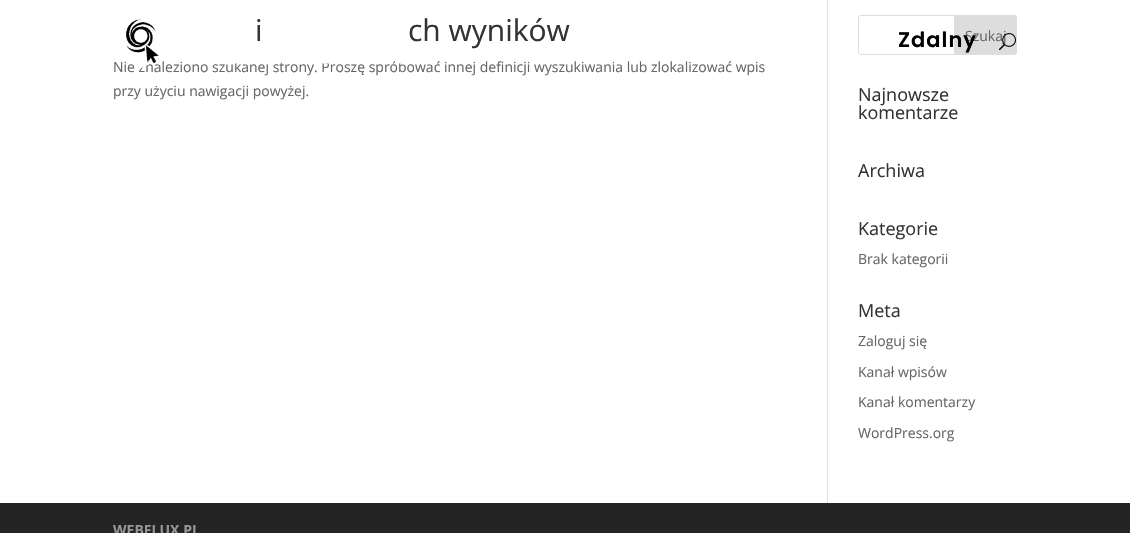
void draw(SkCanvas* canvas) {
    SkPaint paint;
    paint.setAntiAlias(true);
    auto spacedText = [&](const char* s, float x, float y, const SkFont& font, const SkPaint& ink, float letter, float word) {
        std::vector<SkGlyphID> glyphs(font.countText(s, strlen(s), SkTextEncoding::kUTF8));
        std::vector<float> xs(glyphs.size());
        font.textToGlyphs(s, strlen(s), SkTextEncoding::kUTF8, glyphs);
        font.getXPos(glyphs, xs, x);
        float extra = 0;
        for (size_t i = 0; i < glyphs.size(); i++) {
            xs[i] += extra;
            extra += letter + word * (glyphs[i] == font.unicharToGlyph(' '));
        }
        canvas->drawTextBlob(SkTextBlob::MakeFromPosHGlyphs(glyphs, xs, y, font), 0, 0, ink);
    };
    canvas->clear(0xFFFFFFFF);
    paint.setColor(0xFFE2E2E2);
    canvas->drawRect(SkRect::MakeXYWH(827, 0, 1, 503), paint);
    SkFont font1(fontMgr->matchFamilyStyle("Open Sans", SkFontStyle::Normal()), 30);
    font1.setSubpixel(true);
    paint.setColor(0xFF333333);
    canvas->drawString("i", 255, 41, font1, paint);
    canvas->drawString("ch wyników", 408, 41, font1, paint);
    SkFont font2(fontMgr->matchFamilyStyle("Open Sans", SkFontStyle::Normal()), 14);
    font2.setSubpixel(true);
    paint.setColor(0xFF666666);
    canvas->drawString("Nie znaleziono szukanej strony. Proszę spróbować innej definicji wyszukiwania lub zlokalizować wpis", 113, 72, font2, paint);
    canvas->drawString("przy użyciu nawigacji powyżej.", 113, 96, font2, paint);
    paint.setStyle(SkPaint::kStroke_Style);
    paint.setStrokeWidth(1);
    paint.setColor(0xFFDDDDDD);
    canvas->drawRoundRect(SkRect::MakeXYWH(858.5f, 15.5f, 158, 39), 2.5f, 2.5f, paint);
    paint.setStyle(SkPaint::kFill_Style);
    canvas->drawPath(SkPathBuilder().moveTo(954.5f, 15.5f).lineTo(1014, 15.5f).cubicTo(1015.5f, 15.5f, 1016.5f, 16.5f, 1016.5f, 18).lineTo(1016.5f, 52).cubicTo(1016.5f, 53.5f, 1015.5f, 54.5f, 1014, 54.5f).lineTo(954.5f, 54.5f).close().detach(), paint);
    paint.setStyle(SkPaint::kStroke_Style);
    canvas->drawPath(SkPathBuilder().moveTo(954.5f, 15.5f).lineTo(1014, 15.5f).cubicTo(1015.5f, 15.5f, 1016.5f, 16.5f, 1016.5f, 18).lineTo(1016.5f, 52).cubicTo(1016.5f, 53.5f, 1015.5f, 54.5f, 1014, 54.5f).lineTo(954.5f, 54.5f).close().detach(), paint);
    paint.setStyle(SkPaint::kFill_Style);
    paint.setColor(0xFF666666);
    canvas->drawString("Szukaj", 965, 41, font2, paint);
    SkFont font3(fontMgr->matchFamilyStyle("Open Sans", SkFontStyle::Normal()), 18);
    font3.setSubpixel(true);
    paint.setColor(0xFF333333);
    canvas->drawString("Najnowsze", 858, 101, font3, paint);
    canvas->drawString("komentarze", 858, 119, font3, paint);
    canvas->drawString("Archiwa", 858, 177, font3, paint);
    canvas->drawString("Kategorie", 858, 235, font3, paint);
    paint.setColor(0xFF666666);
    canvas->drawString("Brak kategorii", 858, 264, font2, paint);
    paint.setColor(0xFF333333);
    canvas->drawString("Meta", 858, 317, font3, paint);
    paint.setColor(0xFF666666);
    canvas->drawString("Zaloguj się", 858, 346, font2, paint);
    canvas->drawString("Kanał wpisów", 858, 377, font2, paint);
    canvas->drawString("Kanał komentarzy", 858, 407, font2, paint);
    canvas->drawString("WordPress.org", 858, 438, font2, paint);
    paint.setColor(0xFF242424);
    canvas->drawRect(SkRect::MakeXYWH(0, 503, 1130, 30), paint);
    SkFont font4(fontMgr->matchFamilyStyle("Open Sans", SkFontStyle::Bold()), 14);
    font4.setSubpixel(true);
    paint.setColor(0xFF969696);
    canvas->drawString("WEBFLUX.PL", 113, 535, font4, paint);
    canvas->drawImageRect(SkImages::DeferredFromEncodedData(SkData::MakeFromFileName("img1.png")), SkRect::MakeXYWH(117, 18, 289, 50), SkSamplingOptions());
    SkFont font5(fontMgr->matchFamilyStyle("Poppins", SkFontStyle(600, SkFontStyle::kNormal_Width, SkFontStyle::kUpright_Slant)), 21);
    font5.setSubpixel(true);
    paint.setColor(0xFF000000);
    spacedText("Zdalny", 898, 47, font5, paint, 1, 0);
    canvas->drawImageRect(SkImages::DeferredFromEncodedData(SkData::MakeFromFileName("img2.png")), SkRect::MakeXYWH(999, 33, 17, 18), SkSamplingOptions());
}
